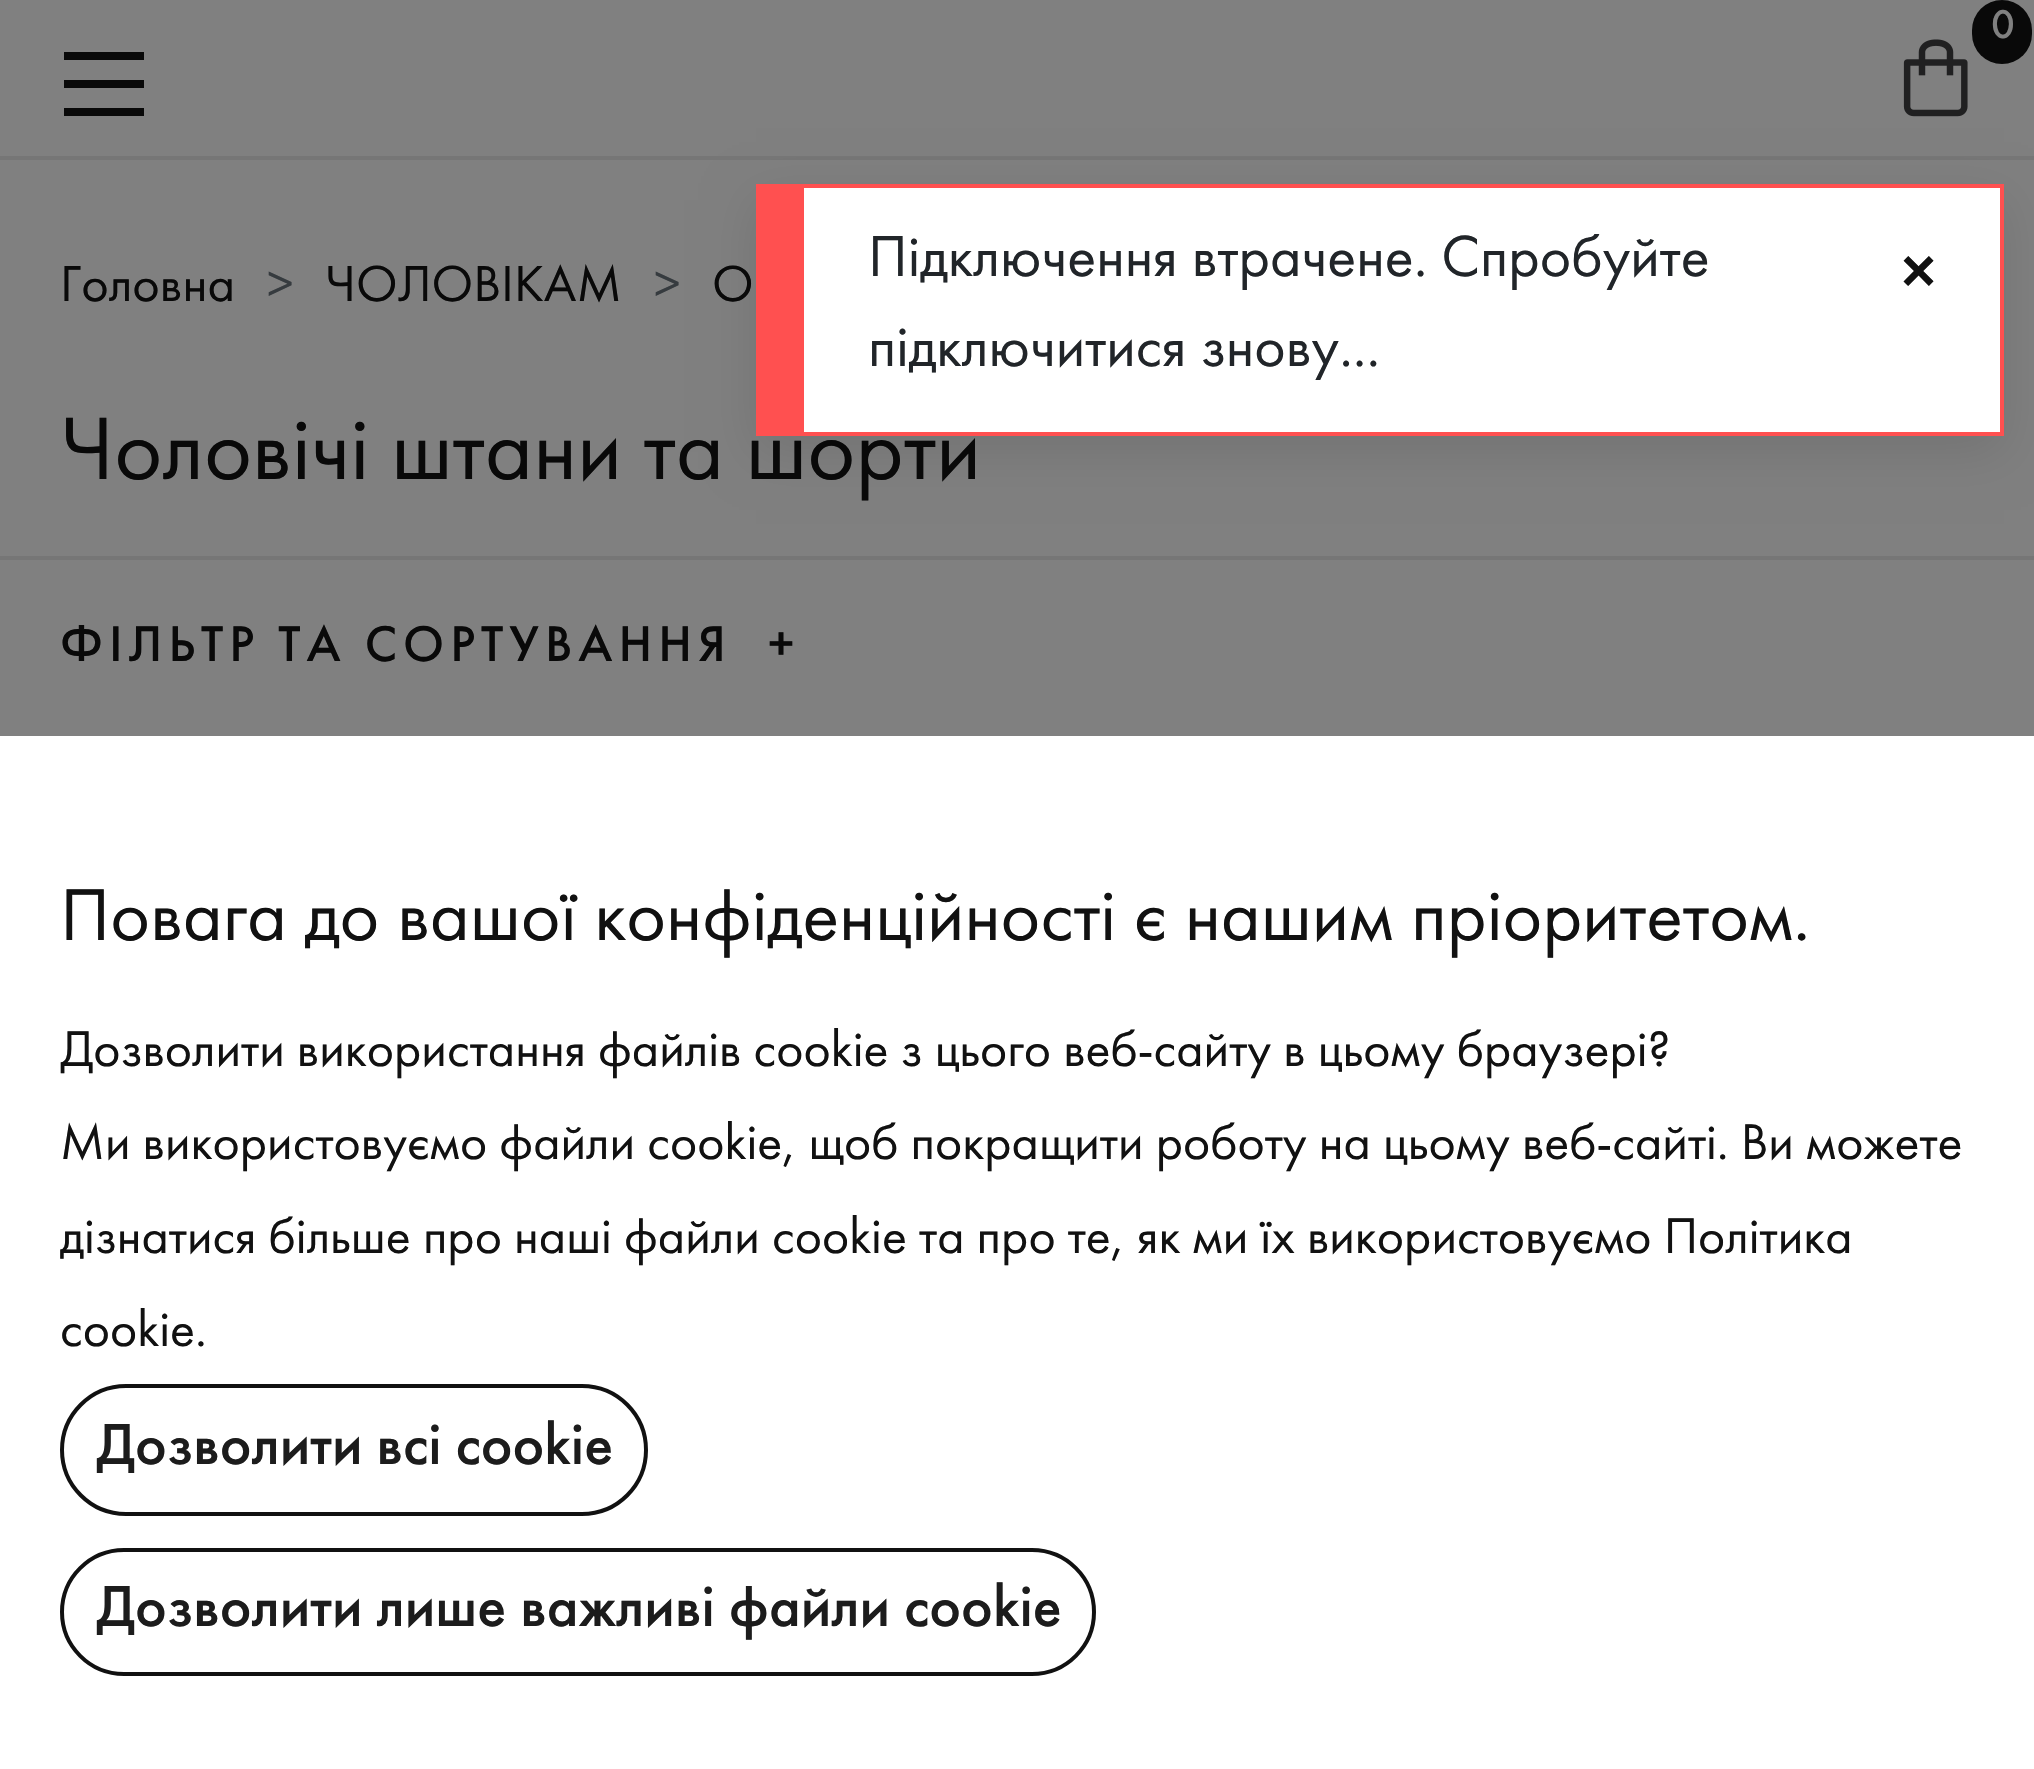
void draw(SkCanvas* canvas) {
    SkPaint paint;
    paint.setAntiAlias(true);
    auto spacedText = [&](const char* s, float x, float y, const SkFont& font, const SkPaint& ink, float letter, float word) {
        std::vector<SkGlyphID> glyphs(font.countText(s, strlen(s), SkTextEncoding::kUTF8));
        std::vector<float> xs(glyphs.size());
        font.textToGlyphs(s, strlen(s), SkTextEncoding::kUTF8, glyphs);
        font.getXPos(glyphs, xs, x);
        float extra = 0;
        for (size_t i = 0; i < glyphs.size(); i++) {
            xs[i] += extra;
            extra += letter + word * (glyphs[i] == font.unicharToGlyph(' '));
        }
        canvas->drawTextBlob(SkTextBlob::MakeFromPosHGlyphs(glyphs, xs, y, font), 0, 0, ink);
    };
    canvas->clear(0xFF808080);
    paint.setColor(0xFF767676);
    canvas->drawRect(SkRect::MakeXYWH(0, 156, 2034, 4), paint);
    paint.setColor(0xFF090909);
    canvas->drawRoundRect(SkRect::MakeXYWH(1972, 0, 60, 64), 30, 30, paint);
    SkFont font1(fontMgr->matchFamilyStyle("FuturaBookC", SkFontStyle::Bold()), 40);
    font1.setSubpixel(true);
    paint.setColor(0xFF808080);
    canvas->drawString("0", 1991, 38, font1, paint);
    canvas->drawImageRect(SkImages::DeferredFromEncodedData(SkData::MakeFromFileName("img1.png")), SkRect::MakeXYWH(1903, 39, 65, 78), SkSamplingOptions());
    paint.setColor(0xFF090909);
    canvas->drawRect(SkRect::MakeXYWH(64, 52, 80, 8), paint);
    canvas->drawRect(SkRect::MakeXYWH(64, 80, 80, 8), paint);
    canvas->drawRect(SkRect::MakeXYWH(64, 108, 80, 8), paint);
    SkFont font2(fontMgr->matchFamilyStyle("FuturaBookC", SkFontStyle::Normal()), 52.5f);
    font2.setSubpixel(true);
    canvas->drawString("Головна", 60, 301, font2, paint);
    paint.setColor(0xFF363B3F);
    canvas->drawString(">", 267, 301, font2, paint);
    paint.setColor(0xFF090909);
    canvas->drawString("ЧОЛОВІКАМ", 325, 301, font2, paint);
    paint.setColor(0xFF363B3F);
    canvas->drawString(">", 654, 301, font2, paint);
    paint.setColor(0xFF090909);
    canvas->drawString("О", 712, 301, font2, paint);
    SkFont font3(fontMgr->matchFamilyStyle("FuturaBookC", SkFontStyle::Normal()), 92);
    font3.setSubpixel(true);
    canvas->drawString("Чоловічі штани та шорти", 60, 479, font3, paint);
    paint.setColor(0xFF767676);
    canvas->drawRect(SkRect::MakeXYWH(0, 556, 2034, 4), paint);
    SkFont font4(fontMgr->matchFamilyStyle("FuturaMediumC", SkFontStyle(500, SkFontStyle::kNormal_Width, SkFontStyle::kUpright_Slant)), 52);
    font4.setSubpixel(true);
    paint.setColor(0xFF090909);
    spacedText("ФІЛЬТР ТА СОРТУВАННЯ  +", 60, 661, font4, paint, 6, 0);
    paint.setColor(0xFFFFFFFF);
    canvas->drawRect(SkRect::MakeXYWH(0, 736, 2034, 1033), paint);
    SkFont font5(fontMgr->matchFamilyStyle("FuturaBookC", SkFontStyle::Normal()), 76);
    font5.setSubpixel(true);
    paint.setColor(0xFF111111);
    canvas->drawString("Повага до вашої конфіденційності є нашим пріоритетом.", 60, 940, font5, paint);
    SkFont font6(fontMgr->matchFamilyStyle("FuturaBookC", SkFontStyle::Normal()), 52);
    font6.setSubpixel(true);
    canvas->drawString("Дозволити використання файлів cookie з цього веб-сайту в цьому браузері?", 60, 1066, font6, paint);
    canvas->drawString("Ми використовуємо файли cookie, щоб покращити роботу на цьому веб-сайті. Ви можете", 60, 1159, font6, paint);
    canvas->drawString("дізнатися більше про наші файли cookie та про те, як ми їх використовуємо Політика", 60, 1253, font6, paint);
    canvas->drawString("cookie.", 60, 1346, font6, paint);
    paint.setStyle(SkPaint::kStroke_Style);
    paint.setStrokeWidth(4);
    canvas->drawRoundRect(SkRect::MakeXYWH(62, 1386, 584, 128), 64, 64, paint);
    SkFont font7(fontMgr->matchFamilyStyle("FuturaMediumC", SkFontStyle(500, SkFontStyle::kNormal_Width, SkFontStyle::kUpright_Slant)), 60);
    font7.setSubpixel(true);
    paint.setStyle(SkPaint::kFill_Style);
    paint.setColor(0xFF1C1C1C);
    canvas->drawString("Дозволити всі cookie", 96, 1464, font7, paint);
    paint.setStyle(SkPaint::kStroke_Style);
    paint.setColor(0xFF111111);
    canvas->drawRoundRect(SkRect::MakeXYWH(62, 1550, 1032, 124), 62, 62, paint);
    paint.setStyle(SkPaint::kFill_Style);
    paint.setColor(0xFF1C1C1C);
    canvas->drawString("Дозволити лише важливі файли cookie", 96, 1626, font7, paint);
    paint.setColor(0x1A000000);
    paint.setMaskFilter(SkMaskFilter::MakeBlur(kNormal_SkBlurStyle, 24));
    canvas->drawRect(SkRect::MakeXYWH(756, 200, 1248, 252), paint);
    paint.setMaskFilter(nullptr);
    paint.setColor(0xFFFFFFFF);
    canvas->drawRect(SkRect::MakeXYWH(804, 188, 1196, 244), paint);
    paint.setColor(0xFFFF5050);
    canvas->drawRect(SkRect::MakeXYWH(804, 184, 1200, 4), paint);
    canvas->drawRect(SkRect::MakeXYWH(2000, 184, 4, 252), paint);
    canvas->drawRect(SkRect::MakeXYWH(804, 432, 1200, 4), paint);
    canvas->drawRect(SkRect::MakeXYWH(756, 184, 48, 252), paint);
    SkFont font8(fontMgr->matchFamilyStyle("FuturaBookC", SkFontStyle::Normal()), 60);
    font8.setSubpixel(true);
    paint.setColor(0xFF212529);
    canvas->drawString("Підключення втрачене. Спробуйте", 868, 276, font8, paint);
    canvas->drawString("підключитися знову...", 868, 366, font8, paint);
    SkFont font9(fontMgr->matchFamilyStyle("Liberation Sans", SkFontStyle::Bold()), 60);
    font9.setSubpixel(true);
    paint.setColor(0xFF111111);
    canvas->drawString("×", 1901, 291, font9, paint);
}
